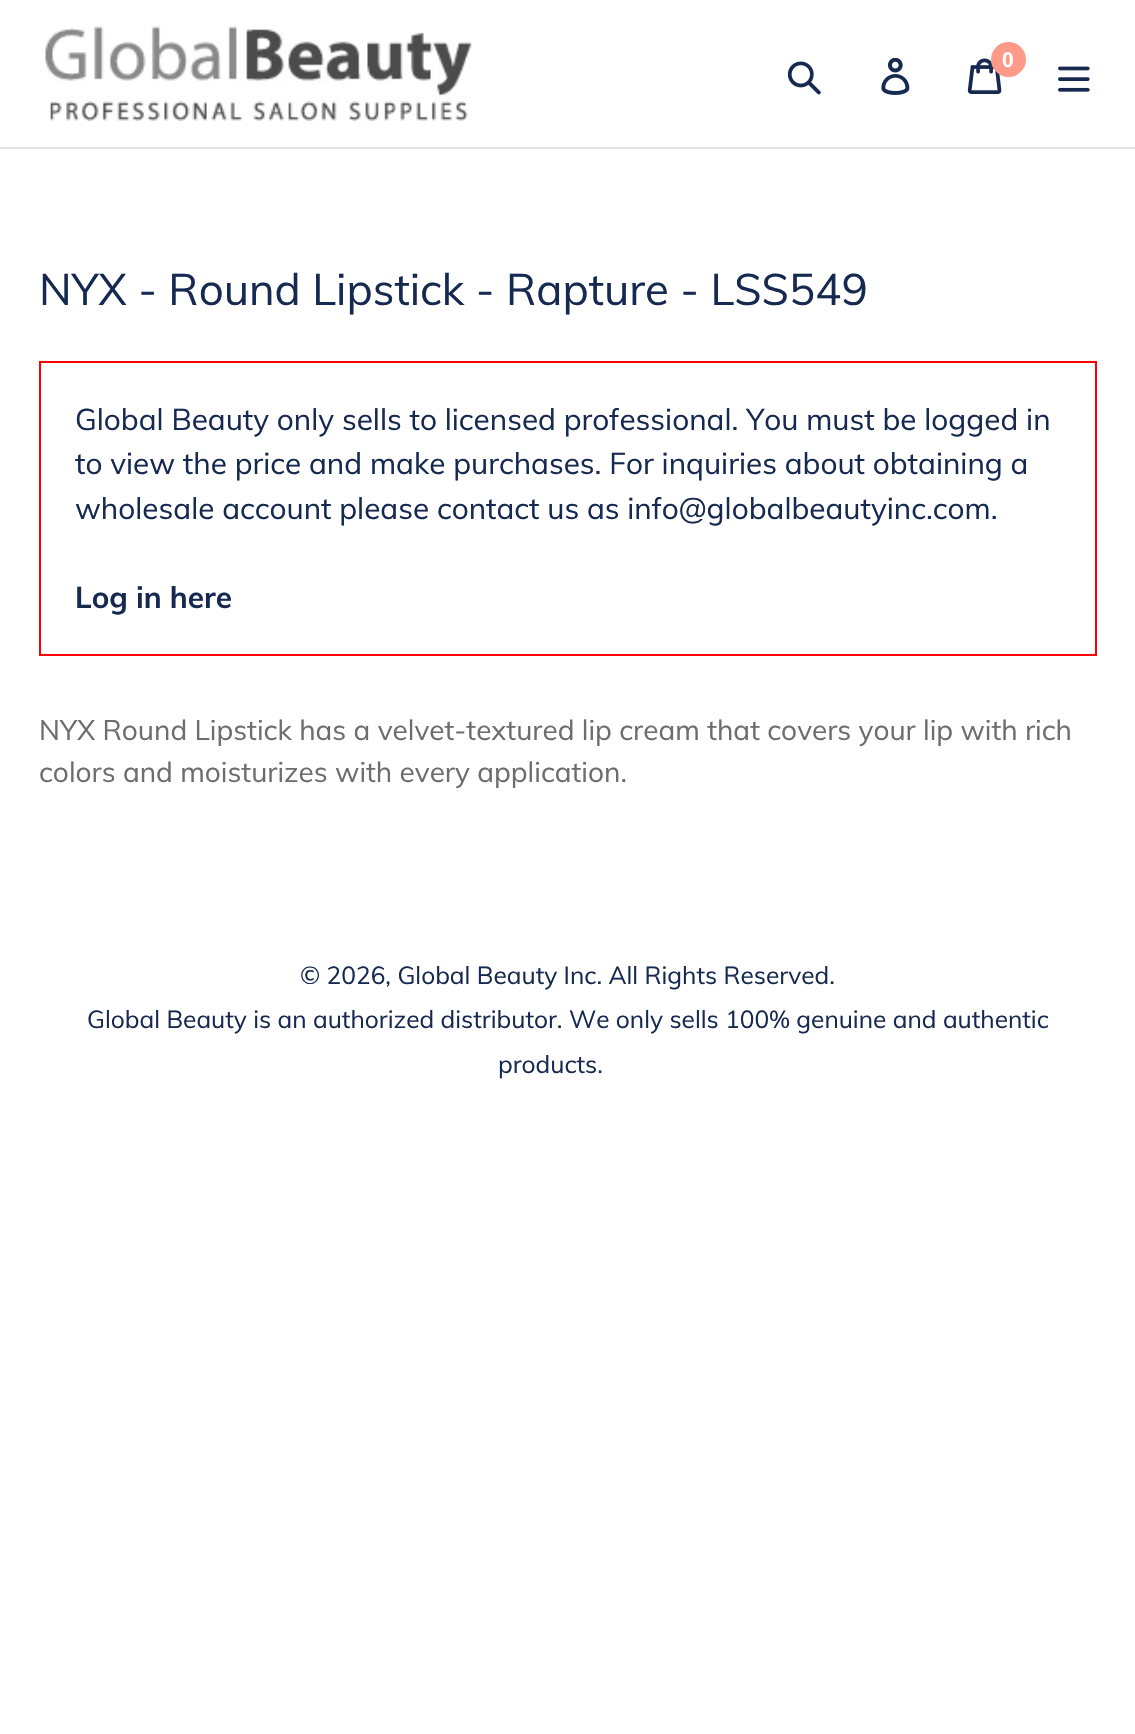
void draw(SkCanvas* canvas) {
    SkPaint paint;
    paint.setAntiAlias(true);
    canvas->clear(0xFFFFFFFF);
    paint.setColor(0xFFE4E4E4);
    canvas->drawRect(SkRect::MakeXYWH(0, 147, 1135, 2), paint);
    canvas->drawImageRect(SkImages::DeferredFromEncodedData(SkData::MakeFromFileName("img1.png")), SkRect::MakeXYWH(45, 26, 427, 95), SkSamplingOptions());
    canvas->drawImageRect(SkImages::DeferredFromEncodedData(SkData::MakeFromFileName("img2.png")), SkRect::MakeXYWH(787, 61, 34, 34), SkSamplingOptions());
    canvas->drawImageRect(SkImages::DeferredFromEncodedData(SkData::MakeFromFileName("img3.png")), SkRect::MakeXYWH(881, 58, 29, 37), SkSamplingOptions());
    canvas->drawImageRect(SkImages::DeferredFromEncodedData(SkData::MakeFromFileName("img4.png")), SkRect::MakeXYWH(967, 58, 35, 36), SkSamplingOptions());
    paint.setColor(0xFFFF9988);
    canvas->drawCircle(1008.5f, 59.5f, 17.5f, paint);
    SkFont font1(fontMgr->matchFamilyStyle("Liberation Sans", SkFontStyle::Bold()), 21);
    font1.setSubpixel(true);
    paint.setColor(0xFFFFFFFF);
    canvas->drawString("0", 1002, 67, font1, paint);
    canvas->drawImageRect(SkImages::DeferredFromEncodedData(SkData::MakeFromFileName("img5.png")), SkRect::MakeXYWH(1058, 66, 32, 26), SkSamplingOptions());
    SkFont font2(fontMgr->matchFamilyStyle("Muli", SkFontStyle::Normal()), 43.75f);
    font2.setSubpixel(true);
    paint.setColor(0xFF162950);
    canvas->drawString("NYX - Round Lipstick - Rapture - LSS549", 39, 305, font2, paint);
    paint.setStyle(SkPaint::kStroke_Style);
    paint.setStrokeWidth(2);
    paint.setColor(0xFFFF0000);
    canvas->drawRect(SkRect::MakeXYWH(40, 362, 1056, 293), paint);
    SkFont font3(fontMgr->matchFamilyStyle("Muli", SkFontStyle::Normal()), 29.75f);
    font3.setSubpixel(true);
    paint.setStyle(SkPaint::kFill_Style);
    paint.setColor(0xFF162950);
    canvas->drawString("Global Beauty only sells to licensed professional. You must be logged in", 75, 430, font3, paint);
    canvas->drawString("to view the price and make purchases. For inquiries about obtaining a", 75, 474, font3, paint);
    canvas->drawString("wholesale account please contact us as info@globalbeautyinc.com.", 75, 519, font3, paint);
    SkFont font4(fontMgr->matchFamilyStyle("Muli", SkFontStyle::Bold()), 29.75f);
    font4.setSubpixel(true);
    canvas->drawString("Log in here", 75, 608, font4, paint);
    SkFont font5(fontMgr->matchFamilyStyle("Muli", SkFontStyle::Normal()), 28);
    font5.setSubpixel(true);
    paint.setColor(0xFF6D6D6D);
    canvas->drawString("NYX Round Lipstick has a velvet-textured lip cream that covers your lip with rich", 39, 740, font5, paint);
    canvas->drawString("colors and moisturizes with every application.", 39, 782, font5, paint);
    SkFont font6(fontMgr->matchFamilyStyle("Muli", SkFontStyle::Normal()), 24.5f);
    font6.setSubpixel(true);
    paint.setColor(0xFF162950);
    canvas->drawString("© 2026, Global Beauty Inc. All Rights Reserved.", 300, 984, font6, paint);
    canvas->drawString("Global Beauty is an authorized distributor. We only sells 100% genuine and authentic", 87, 1028, font6, paint);
    canvas->drawString("products.", 498, 1073, font6, paint);
}
